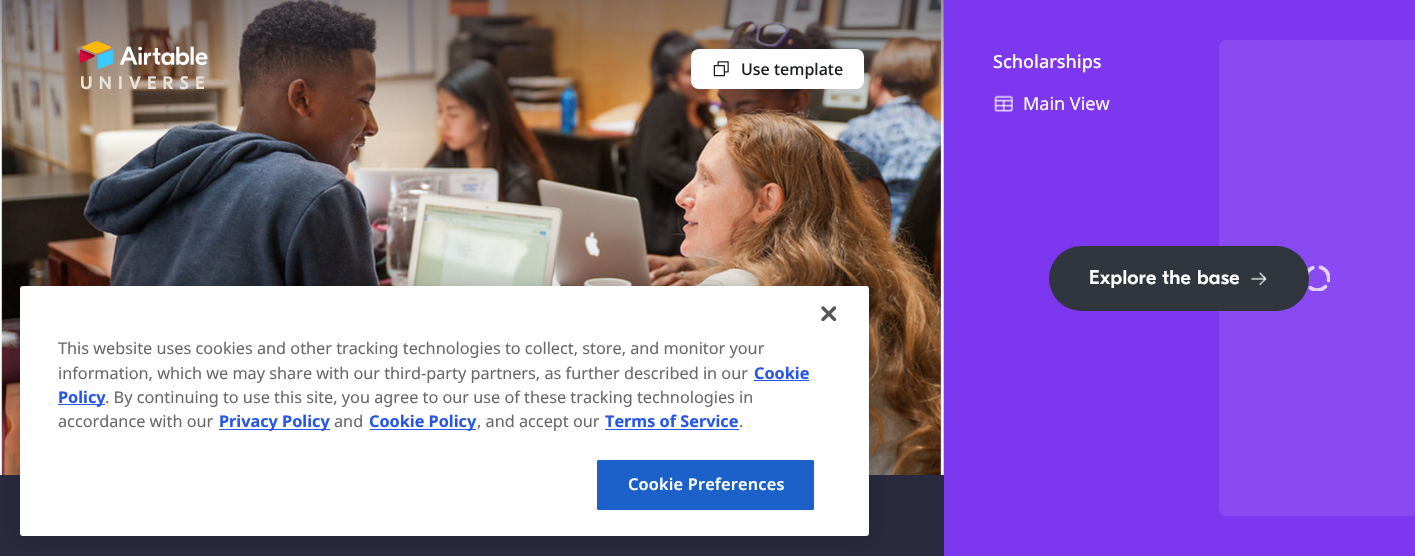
void draw(SkCanvas* canvas) {
    SkPaint paint;
    paint.setAntiAlias(true);
    auto spacedText = [&](const char* s, float x, float y, const SkFont& font, const SkPaint& ink, float letter, float word) {
        std::vector<SkGlyphID> glyphs(font.countText(s, strlen(s), SkTextEncoding::kUTF8));
        std::vector<float> xs(glyphs.size());
        font.textToGlyphs(s, strlen(s), SkTextEncoding::kUTF8, glyphs);
        font.getXPos(glyphs, xs, x);
        float extra = 0;
        for (size_t i = 0; i < glyphs.size(); i++) {
            xs[i] += extra;
            extra += letter + word * (glyphs[i] == font.unicharToGlyph(' '));
        }
        canvas->drawTextBlob(SkTextBlob::MakeFromPosHGlyphs(glyphs, xs, y, font), 0, 0, ink);
    };
    canvas->clear(0xFF7C37EF);
    paint.setColor(0xFF292A3E);
    canvas->drawRect(SkRect::MakeXYWH(0, 0, 944, 556), paint);
    canvas->drawImageRect(SkImages::DeferredFromEncodedData(SkData::MakeFromFileName("img1.png")), SkRect::MakeXYWH(0, 0, 944, 475), SkSamplingOptions());
    {
        const SkColor colors[] = {0x802A2A3E, 0x002A2A3E};
        const float stops[] = {0, 1};
        const SkPoint ends[] = {{472, 0}, {472, 138}};
        paint.setShader(SkGradientShader::MakeLinear(ends, colors, stops, 2, SkTileMode::kClamp));
        paint.setAlpha(255);
    }
    canvas->drawRect(SkRect::MakeXYWH(0, 0, 944, 132), paint);
    paint.setShader(nullptr);
    paint.setColor(0xFFFFFFFF);
    canvas->drawRoundRect(SkRect::MakeXYWH(691, 49, 173, 40), 8, 8, paint);
    canvas->drawImageRect(SkImages::DeferredFromEncodedData(SkData::MakeFromFileName("img2.png")), SkRect::MakeXYWH(713, 61, 16, 16), SkSamplingOptions());
    SkFont font1(fontMgr->matchFamilyStyle("Noto Sans", SkFontStyle(500, SkFontStyle::kNormal_Width, SkFontStyle::kUpright_Slant)), 16);
    font1.setSubpixel(true);
    paint.setColor(0xFF1D1F25);
    canvas->drawString("Use template", 741, 75, font1, paint);
    canvas->drawImageRect(SkImages::DeferredFromEncodedData(SkData::MakeFromFileName("img3.png")), SkRect::MakeXYWH(80, 41, 128, 28), SkSamplingOptions());
    SkFont font2(fontMgr->matchFamilyStyle("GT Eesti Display", SkFontStyle(500, SkFontStyle::kNormal_Width, SkFontStyle::kUpright_Slant)), 18);
    font2.setSubpixel(true);
    paint.setColor(0xFFE7E1DB);
    spacedText("UNIVERSE", 80, 89, font2, paint, 6.25f, 0);
    SkFont font3(fontMgr->matchFamilyStyle("Noto Sans", SkFontStyle(500, SkFontStyle::kNormal_Width, SkFontStyle::kUpright_Slant)), 18);
    font3.setSubpixel(true);
    paint.setColor(0xFFFFFFFF);
    canvas->drawString("Scholarships", 993, 68, font3, paint);
    canvas->drawImageRect(SkImages::DeferredFromEncodedData(SkData::MakeFromFileName("img4.png")), SkRect::MakeXYWH(994, 95, 19, 17), SkSamplingOptions());
    SkFont font4(fontMgr->matchFamilyStyle("Noto Sans", SkFontStyle::Normal()), 18);
    font4.setSubpixel(true);
    canvas->drawString("Main View", 1023, 110, font4, paint);
    paint.setColor(0xFF894BF1);
    canvas->drawPath(SkPathBuilder().moveTo(1227, 40).lineTo(1415, 40).lineTo(1415, 516).lineTo(1227, 516).cubicTo(1222.5f, 516, 1219, 512.5f, 1219, 508).lineTo(1219, 48).cubicTo(1219, 43.5f, 1222.5f, 40, 1227, 40).close().detach(), paint);
    canvas->drawImageRect(SkImages::DeferredFromEncodedData(SkData::MakeFromFileName("img5.png")), SkRect::MakeXYWH(1307, 265, 23, 26), SkSamplingOptions());
    paint.setColor(0xFF31353E);
    canvas->drawRoundRect(SkRect::MakeXYWH(1049, 246, 260, 65), 32.5f, 32.5f, paint);
    SkFont font5(fontMgr->matchFamilyStyle("GT Eesti Display", SkFontStyle(500, SkFontStyle::kNormal_Width, SkFontStyle::kUpright_Slant)), 20);
    font5.setSubpixel(true);
    paint.setColor(0xFFFFFFFF);
    spacedText("Explore the base", 1089, 284, font5, paint, 0.25f, 0);
    canvas->drawImageRect(SkImages::DeferredFromEncodedData(SkData::MakeFromFileName("img6.png")), SkRect::MakeXYWH(1250, 271, 17, 15), SkSamplingOptions());
    paint.setColor(0x33000000);
    paint.setMaskFilter(SkMaskFilter::MakeBlur(kNormal_SkBlurStyle, 11));
    canvas->drawRoundRect(SkRect::MakeXYWH(20, 286, 849, 250), 3, 3, paint);
    paint.setMaskFilter(nullptr);
    paint.setColor(0xFFFFFFFF);
    canvas->drawRoundRect(SkRect::MakeXYWH(20, 286, 849, 250), 3, 3, paint);
    canvas->drawImageRect(SkImages::DeferredFromEncodedData(SkData::MakeFromFileName("img7.png")), SkRect::MakeXYWH(821, 306, 15, 15), SkSamplingOptions());
    SkFont font6(fontMgr->matchFamilyStyle("Noto Sans", SkFontStyle::Normal()), 16.25f);
    font6.setSubpixel(true);
    paint.setColor(0xFF696969);
    canvas->drawString("This website uses cookies and other tracking technologies to collect, store, and monitor your", 58, 354, font6, paint);
    canvas->drawString("information, which we may share with our third-party partners, as further described in our", 58, 379, font6, paint);
    SkFont font7(fontMgr->matchFamilyStyle("Noto Sans", SkFontStyle::Bold()), 16.25f);
    font7.setSubpixel(true);
    paint.setColor(0xFF2657E8);
    canvas->drawString("Cookie", 754, 379, font7, paint);
    canvas->drawRect(SkRect::MakeXYWH(754, 380, 55, 1), paint);
    canvas->drawRect(SkRect::MakeXYWH(58, 404, 47, 1), paint);
    canvas->drawString("Policy", 58, 403, font7, paint);
    paint.setColor(0xFF696969);
    canvas->drawString(". By continuing to use this site, you agree to our use of these tracking technologies in", 105, 403, font6, paint);
    canvas->drawString("accordance with our", 58, 427, font6, paint);
    paint.setColor(0xFF2657E8);
    canvas->drawRect(SkRect::MakeXYWH(219, 429, 111, 1), paint);
    canvas->drawString("Privacy Policy", 219, 427, font7, paint);
    paint.setColor(0xFF696969);
    canvas->drawString("and", 334, 427, font6, paint);
    paint.setColor(0xFF2657E8);
    canvas->drawRect(SkRect::MakeXYWH(370, 429, 106, 1), paint);
    canvas->drawString("Cookie Policy", 369, 427, font7, paint);
    paint.setColor(0xFF696969);
    canvas->drawString(", and accept our", 477, 427, font6, paint);
    paint.setColor(0xFF2657E8);
    canvas->drawString("Terms of Service", 605, 427, font7, paint);
    canvas->drawRect(SkRect::MakeXYWH(605, 429, 134, 1), paint);
    paint.setColor(0xFF696969);
    canvas->drawString(".", 739, 427, font6, paint);
    paint.setColor(0xFF1B61C9);
    canvas->drawRoundRect(SkRect::MakeXYWH(596.5f, 459.5f, 218, 51), 2, 2, paint);
    paint.setStyle(SkPaint::kStroke_Style);
    paint.setStrokeWidth(1);
    paint.setColor(0xFFFFFFFF);
    canvas->drawRoundRect(SkRect::MakeXYWH(596.5f, 459.5f, 218, 51), 2, 2, paint);
    SkFont font8(fontMgr->matchFamilyStyle("Noto Sans", SkFontStyle(600, SkFontStyle::kNormal_Width, SkFontStyle::kUpright_Slant)), 16.25f);
    font8.setSubpixel(true);
    paint.setStyle(SkPaint::kFill_Style);
    spacedText("Cookie Preferences", 628, 490, font8, paint, 0.2f, 0);
}
